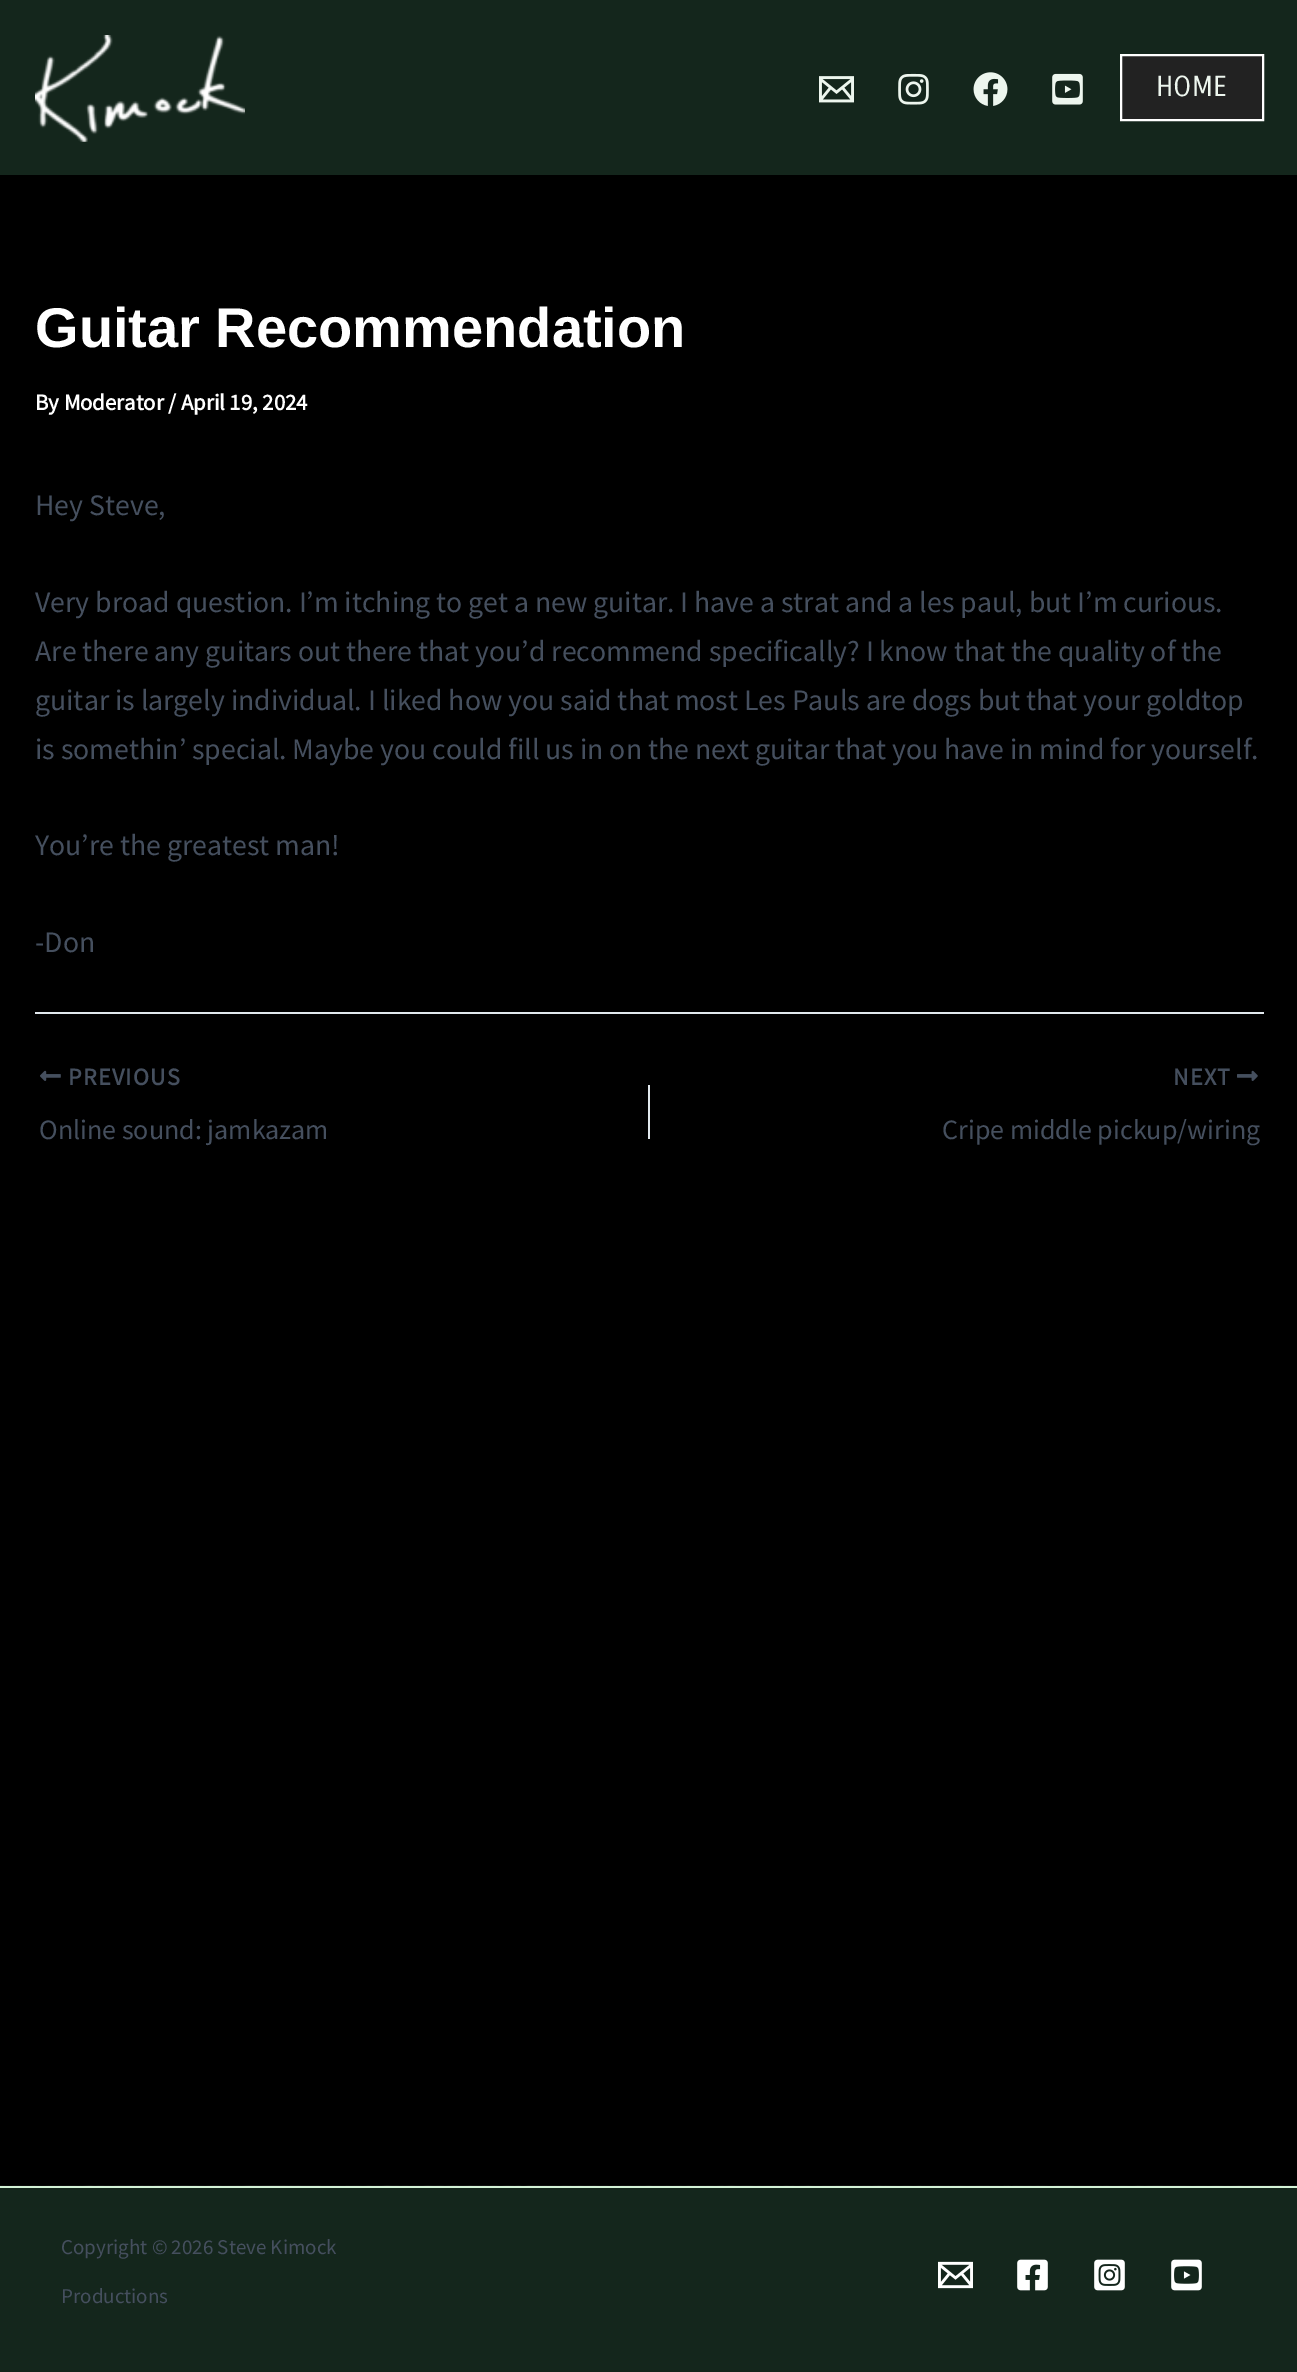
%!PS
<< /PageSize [1297 2372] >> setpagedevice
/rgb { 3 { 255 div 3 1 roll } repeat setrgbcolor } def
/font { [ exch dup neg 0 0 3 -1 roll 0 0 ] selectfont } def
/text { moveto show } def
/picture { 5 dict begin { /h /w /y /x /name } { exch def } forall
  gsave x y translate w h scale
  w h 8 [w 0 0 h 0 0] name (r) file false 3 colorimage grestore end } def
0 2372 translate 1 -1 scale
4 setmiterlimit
0 0 0 rgb
0 0 1297 2372 rectfill
20 38 28 rgb
0 0 1297 175 rectfill
(img_01.rgb) 35 35 210 107 picture
(img_02.rgb) 819 76 35 27 picture
(img_03.rgb) 898 73 31 32 picture
(img_04.rgb) 973 72 35 34 picture
(img_05.rgb) 1052 73 31 32 picture
34 34 34 rgb
1121 55 moveto 142 0 rlineto 0 65 rlineto -142 0 rlineto closepath gsave fill grestore
255 255 255 rgb
2 setlinewidth
stroke
(img_06.rgb) 0 2185 1297 1 picture
225 232 237 rgb
35 1012 1229 2 rectfill
(img_07.rgb) 40 1070 21 11 picture
648 1085 2 54 rectfill
(img_08.rgb) 1237 1070 21 11 picture
20 38 28 rgb
0 2188 1297 184 rectfill
212 243 215 rgb
0 2186 1297 2 rectfill
(img_09.rgb) 938 2261 35 28 picture
(img_10.rgb) 1017 2259 31 32 picture
(img_11.rgb) 1094 2259 31 32 picture
(img_12.rgb) 1171 2259 31 32 picture
/CarroisGothic-Regular 28 font
237 246 238 rgb
(HOME) 1156 96 text
/LiberationSans-Bold 56 font
255 255 255 rgb
(Guitar Recommendation) 35 347 text
/SourceSansPro-Bold 22.75 font
(By Moderator / April 19, 2024) 35 410 text
/SourceSansPro-Regular 29.75 font
69 79 94 rgb
(Hey Steve,) 35 515 text
(Very broad question. I’m itching to get a new guitar. I have a strat and a les paul, but I’m curious.) 35 612 text
(Are there any guitars out there that you’d recommend specifically? I know that the quality of the) 35 661 text
(guitar is largely individual. I liked how you said that most Les Pauls are dogs but that your goldtop) 35 710 text
(is somethin’ special. Maybe you could fill us in on the next guitar that you have in mind for yourself.) 35 759 text
(You’re the greatest man!) 35 855 text
(-Don) 35 952 text
/SourceSansPro-Bold 24 font
68 1085 moveto 1.25 0 (PREVIOUS) ashow
/SourceSansPro-Regular 28 font
(Online sound: jamkazam) 39 1139 text
/SourceSansPro-Bold 24 font
1173 1085 moveto 1.25 0 (NEXT) ashow
/SourceSansPro-Regular 28 font
(Cripe middle pickup/wiring) 942 1139 text
/SourceSansPro-Regular 21 font
(Copyright © 2026 Steve Kimock) 61 2254 text
(Productions) 61 2303 text
showpage
